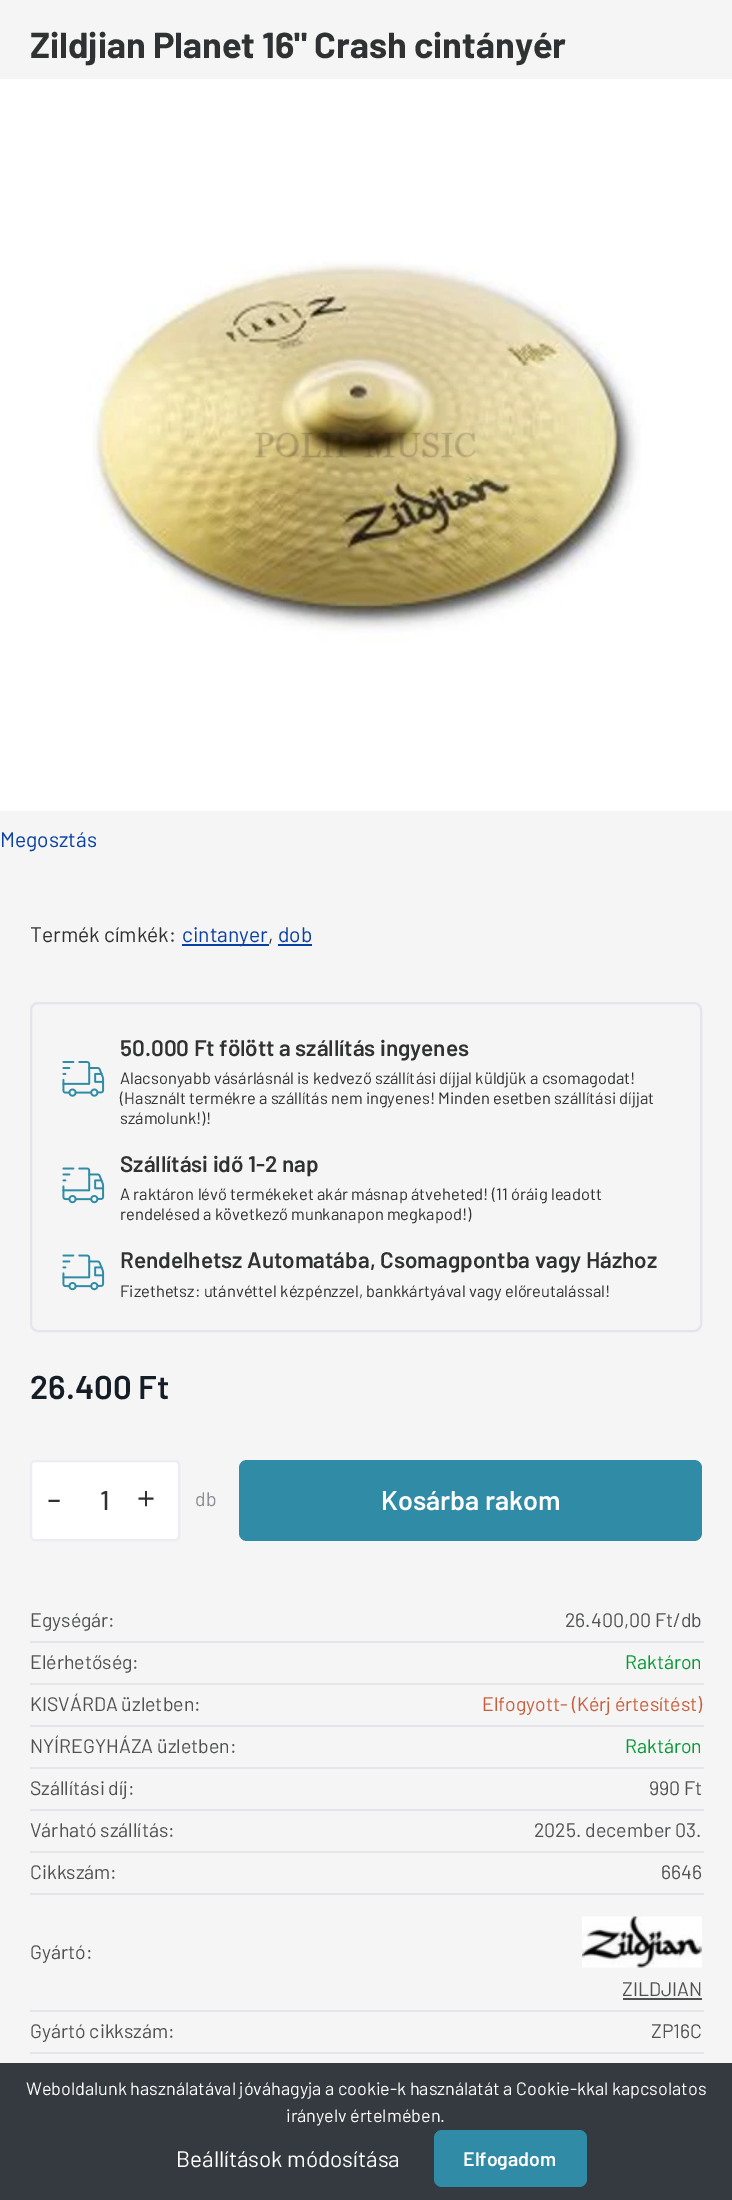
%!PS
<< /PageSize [732 2200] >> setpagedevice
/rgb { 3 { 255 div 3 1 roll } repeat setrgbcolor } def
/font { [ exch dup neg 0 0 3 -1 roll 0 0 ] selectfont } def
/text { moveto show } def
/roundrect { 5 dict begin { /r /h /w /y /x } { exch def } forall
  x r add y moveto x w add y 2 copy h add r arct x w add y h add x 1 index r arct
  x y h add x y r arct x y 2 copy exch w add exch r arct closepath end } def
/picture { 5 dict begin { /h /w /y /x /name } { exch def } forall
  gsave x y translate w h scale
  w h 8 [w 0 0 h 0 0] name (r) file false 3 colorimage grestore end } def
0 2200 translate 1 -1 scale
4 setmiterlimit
245 245 245 rgb
0 0 732 2200 rectfill
(img_01.rgb) 0 79 732 732 picture
10 63 163 rgb
182 944 87 2 rectfill
278 944 34 2 rectfill
228 228 234 rgb
2 setlinewidth
31 1003 670 328 7 roundrect stroke
(img_02.rgb) 62 1061 43 36 picture
(img_03.rgb) 62 1167 43 37 picture
(img_03.rgb) 62 1254 43 37 picture
255 255 255 rgb
31 1461 148 79 4 roundrect gsave fill grestore
236 236 244 rgb
stroke
48 140 166 rgb
239 1460 463 81 8 roundrect fill
228 228 234 rgb
30 1641 674 2 rectfill
30 1683 674 2 rectfill
30 1725 674 2 rectfill
30 1767 674 2 rectfill
30 1809 674 2 rectfill
30 1851 674 2 rectfill
30 1893 674 2 rectfill
(img_04.rgb) 582 1916 120 52 picture
79 81 83 rgb
623 1998 79 2 rectfill
228 228 234 rgb
30 2010 674 2 rectfill
30 2052 674 2 rectfill
52 58 64 rgb
0 2063 732 137 rectfill
48 140 166 rgb
434 2130 153 57 8 roundrect fill
/Barlow-Bold 36 font
47 49 50 rgb
(Zildjian Planet 16" Crash cintányér) 30 58 text
/Barlow-Regular 21 font
10 63 163 rgb
(Megosztás) 0 847 text
47 49 50 rgb
(Termék címkék:) 30 942 text
10 63 163 rgb
(cintanyer) 182 942 text
47 49 50 rgb
(,) 268 942 text
10 63 163 rgb
(dob) 278 942 text
/Barlow-SemiBold 22.5 font
47 49 50 rgb
(50.000 Ft fölött a szállítás ingyenes) 120 1056 text
/Barlow-Regular 16.5 font
(Alacsonyabb vásárlásnál is kedvező szállítási díjjal küldjük a csomagodat!) 120 1084 text
(\(Használt termékre a szállítás nem ingyenes! Minden esetben szállítási díjjat) 120 1104 text
(számolunk!\)!) 120 1124 text
/Barlow-SemiBold 22.5 font
(Szállítási idő 1-2 nap) 120 1172 text
/Barlow-Regular 16.5 font
(A raktáron lévő termékeket akár másnap átveheted! \(11 óráig leadott) 120 1200 text
(rendelésed a következő munkanapon megkapod!\)) 120 1220 text
/Barlow-SemiBold 22.5 font
(Rendelhetsz Automatába, Csomagpontba vagy Házhoz) 120 1268 text
/Barlow-Regular 16.5 font
(Fizethetsz: utánvéttel kézpénzzel, bankkártyával vagy előreutalással!) 120 1297 text
/Barlow-SemiBold 33 font
21 30 38 rgb
(26.400 Ft) 30 1399 text
/Barlow-Regular 36 font
47 49 50 rgb
(-) 47 1512 text
/Barlow-Medium 27 font
(1) 100 1510 text
/Barlow-Regular 36 font
(+) 137 1510 text
/Barlow-Regular 19.5 font
141 141 147 rgb
(db) 195 1506 text
/Barlow-SemiBold 27 font
255 255 255 rgb
(Kosárba rakom) 381 1510 text
/Barlow-Regular 19.5 font
79 81 83 rgb
(Egységár:) 30 1627 text
(26.400,00 Ft/db) 565 1627 text
(Elérhetőség:) 30 1669 text
5 153 52 rgb
(Raktáron) 625 1669 text
79 81 83 rgb
(KISVÁRDA üzletben:) 30 1711 text
199 94 59 rgb
(Elfogyott- \(Kérj értesítést\)) 482 1711 text
79 81 83 rgb
(NYÍREGYHÁZA üzletben:) 30 1753 text
5 153 52 rgb
(Raktáron) 625 1753 text
79 81 83 rgb
(Szállítási díj:) 30 1795 text
(990 Ft) 649 1795 text
(Várható szállítás:) 30 1837 text
(2025. december 03.) 534 1837 text
(Cikkszám:) 30 1879 text
(6646) 661 1879 text
(Gyártó:) 30 1959 text
(ZILDJIAN) 622 1996 text
(Gyártó cikkszám:) 30 2038 text
(ZP16C) 651 2038 text
/Barlow-Regular 18 font
255 255 255 rgb
(Weboldalunk használatával jóváhagyja a cookie-k használatát a Cookie-kkal kapcsolatos) 26 2095 text
(irányelv értelmében.) 286 2122 text
/Barlow-Regular 22.5 font
(Beállítások módosítása) 176 2167 text
/Barlow-SemiBold 19.5 font
(Elfogadom) 463 2166 text
showpage
